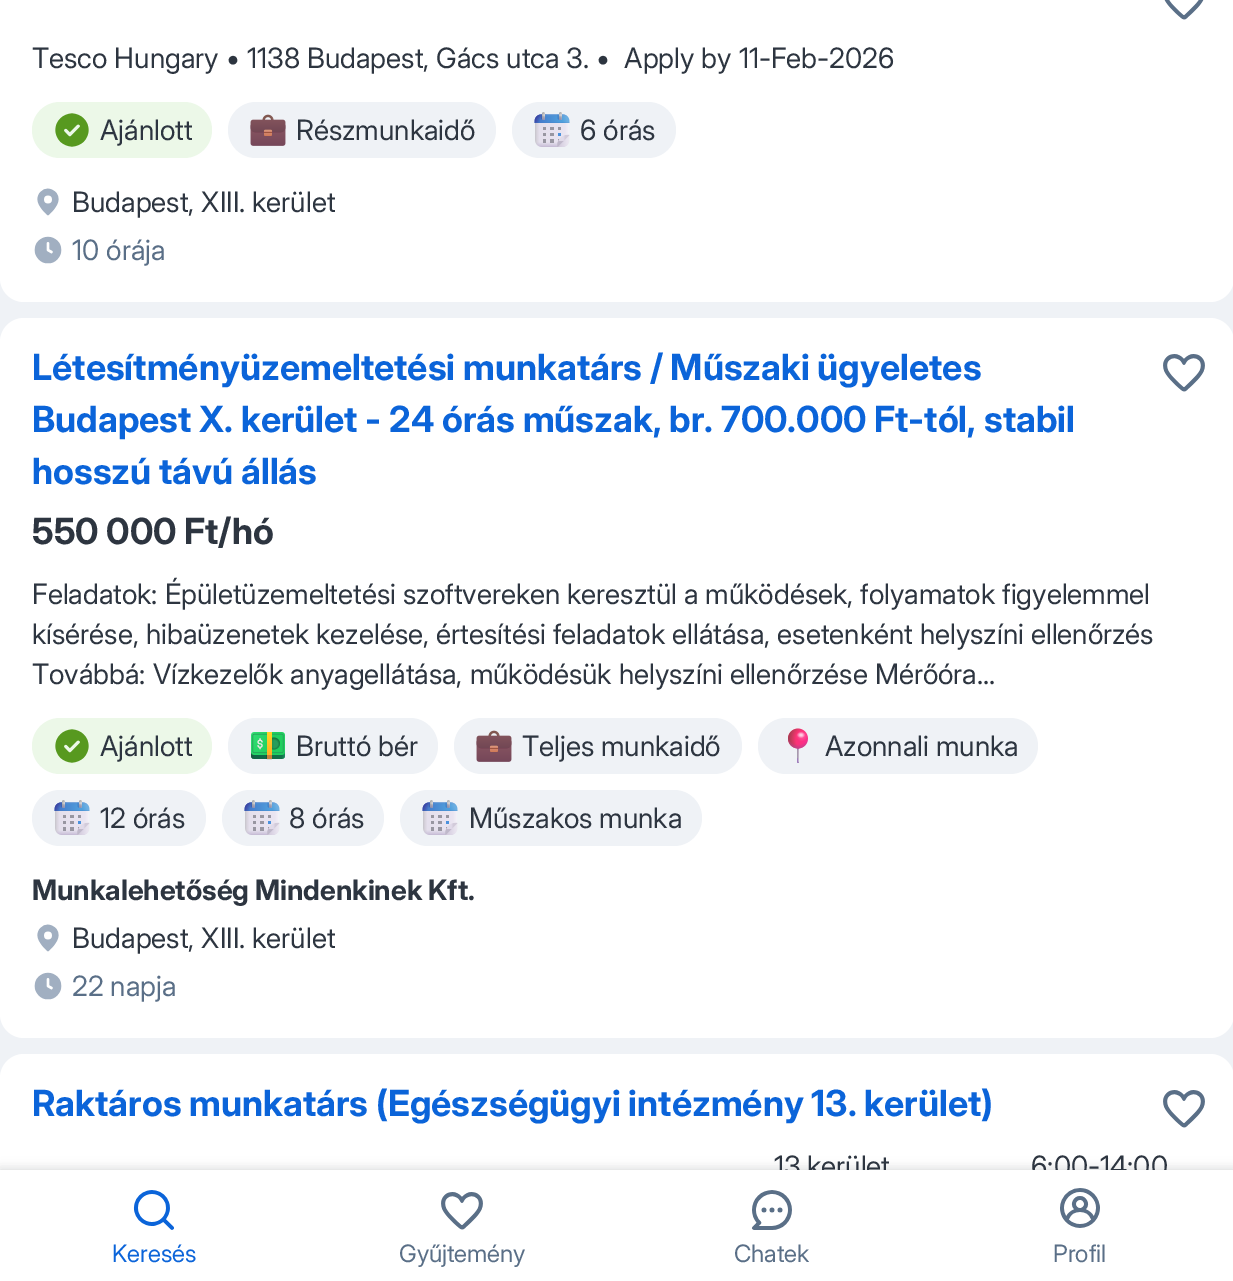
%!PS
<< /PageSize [1233 1281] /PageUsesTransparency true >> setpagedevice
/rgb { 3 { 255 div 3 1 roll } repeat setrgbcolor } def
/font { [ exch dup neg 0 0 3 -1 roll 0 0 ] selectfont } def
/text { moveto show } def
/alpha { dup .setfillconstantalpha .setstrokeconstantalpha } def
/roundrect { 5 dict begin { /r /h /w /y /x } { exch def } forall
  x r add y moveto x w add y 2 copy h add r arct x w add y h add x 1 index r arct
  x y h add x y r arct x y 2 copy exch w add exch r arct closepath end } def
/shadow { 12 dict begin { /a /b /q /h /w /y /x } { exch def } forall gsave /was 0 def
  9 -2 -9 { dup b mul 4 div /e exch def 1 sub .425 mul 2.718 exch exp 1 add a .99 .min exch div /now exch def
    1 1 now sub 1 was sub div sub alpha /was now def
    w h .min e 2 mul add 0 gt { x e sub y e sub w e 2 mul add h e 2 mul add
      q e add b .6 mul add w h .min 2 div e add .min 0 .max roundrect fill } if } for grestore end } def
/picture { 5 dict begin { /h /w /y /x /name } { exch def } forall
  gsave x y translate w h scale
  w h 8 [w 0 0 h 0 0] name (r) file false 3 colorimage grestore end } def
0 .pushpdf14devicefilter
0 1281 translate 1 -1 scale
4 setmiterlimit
239 242 246 rgb
0 0 1233 1281 rectfill
255 255 255 rgb
0 -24 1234 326 24 roundrect fill
(img_01.rgb) 1164 0 40 20 picture
236 248 232 rgb
32 102 180 56 28 roundrect fill
(img_02.rgb) 55 113 34 34 picture
239 242 246 rgb
228 102 268 56 28 roundrect fill
(img_03.rgb) 250 114 36 32 picture
512 102 164 56 28 roundrect fill
(img_04.rgb) 534 112 36 35 picture
(img_05.rgb) 37 188 22 28 picture
(img_06.rgb) 34 236 28 28 picture
255 255 255 rgb
0 318 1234 720 24 roundrect fill
(img_07.rgb) 1163 354 42 38 picture
236 248 232 rgb
32 718 180 56 28 roundrect fill
(img_02.rgb) 55 729 34 34 picture
239 242 246 rgb
228 718 210 56 28 roundrect fill
(img_08.rgb) 251 732 34 28 picture
454 718 288 56 28 roundrect fill
(img_03.rgb) 476 730 36 32 picture
758 718 280 56 28 roundrect fill
(img_09.rgb) 788 728 20 35 picture
32 790 174 56 28 roundrect fill
(img_04.rgb) 54 800 36 35 picture
222 790 162 56 28 roundrect fill
(img_04.rgb) 244 800 36 35 picture
400 790 302 56 28 roundrect fill
(img_04.rgb) 422 800 36 35 picture
(img_05.rgb) 37 924 22 28 picture
(img_06.rgb) 34 972 28 28 picture
255 255 255 rgb
0 1054 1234 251 24 roundrect fill
(img_07.rgb) 1163 1090 42 38 picture
23 30 38 rgb
0 1170 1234 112 0 6 0.12 shadow
0 1170 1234 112 0 4 0.08 shadow
/InterDisplay-Regular 28 font
45 53 64 rgb
(Tesco Hungary • 1138 Budapest, Gács utca 3. •  Apply by 11-Feb-2026) 32 68 text
(Ajánlott) 100 140 text
(Részmunkaidő) 296 140 text
(6 órás) 580 140 text
(Budapest, XIII. kerület) 72 212 text
90 111 135 rgb
(10 órája) 72 260 text
/InterDisplay-Bold 36 font
11 100 217 rgb
(Létesítményüzemeltetési munkatárs / Műszaki ügyeletes) 32 380 text
(Budapest X. kerület - 24 órás műszak, br. 700.000 Ft-tól, stabil) 32 432 text
(hosszú távú állás) 32 484 text
45 53 64 rgb
(550 000 Ft/hó) 32 544 text
/InterDisplay-Regular 28 font
(Feladatok: Épületüzemeltetési szoftvereken keresztül a működések, folyamatok figyelemmel) 32 604 text
(kísérése, hibaüzenetek kezelése, értesítési feladatok ellátása, esetenként helyszíni ellenőrzés) 32 644 text
(Továbbá: Vízkezelők anyagellátása, működésük helyszíni ellenőrzése Mérőóra...) 32 684 text
(Ajánlott) 100 756 text
(Bruttó bér) 296 756 text
(Teljes munkaidő) 522 756 text
(Azonnali munka) 825 756 text
(12 órás) 100 828 text
(8 órás) 289 828 text
(Műszakos munka) 469 828 text
/InterDisplay-Bold 28 font
(Munkalehetőség Mindenkinek Kft.) 32 900 text
/InterDisplay-Regular 28 font
(Budapest, XIII. kerület) 72 948 text
90 111 135 rgb
(22 napja) 72 996 text
/InterDisplay-Bold 36 font
11 100 217 rgb
(Raktáros munkatárs \(Egészségügyi intézmény 13. kerület\)) 32 1116 text
/InterDisplay-Regular 28 font
45 53 64 rgb
(13.kerület) 774 1176 text
(6:00-14:00) 1031 1176 text
255 255 255 rgb
0 1170 1233 111 rectfill
(img_10.rgb) 133 1190 41 40 picture
/InterDisplay-Regular 24 font
11 100 217 rgb
(Keresés) 112 1262 text
(img_07.rgb) 441 1192 42 38 picture
90 111 135 rgb
(Gyűjtemény) 399 1262 text
(img_11.rgb) 751 1190 41 40 picture
(Chatek) 734 1262 text
(img_12.rgb) 1060 1188 40 40 picture
(Profil) 1053 1262 text
.poppdf14devicefilter showpage
